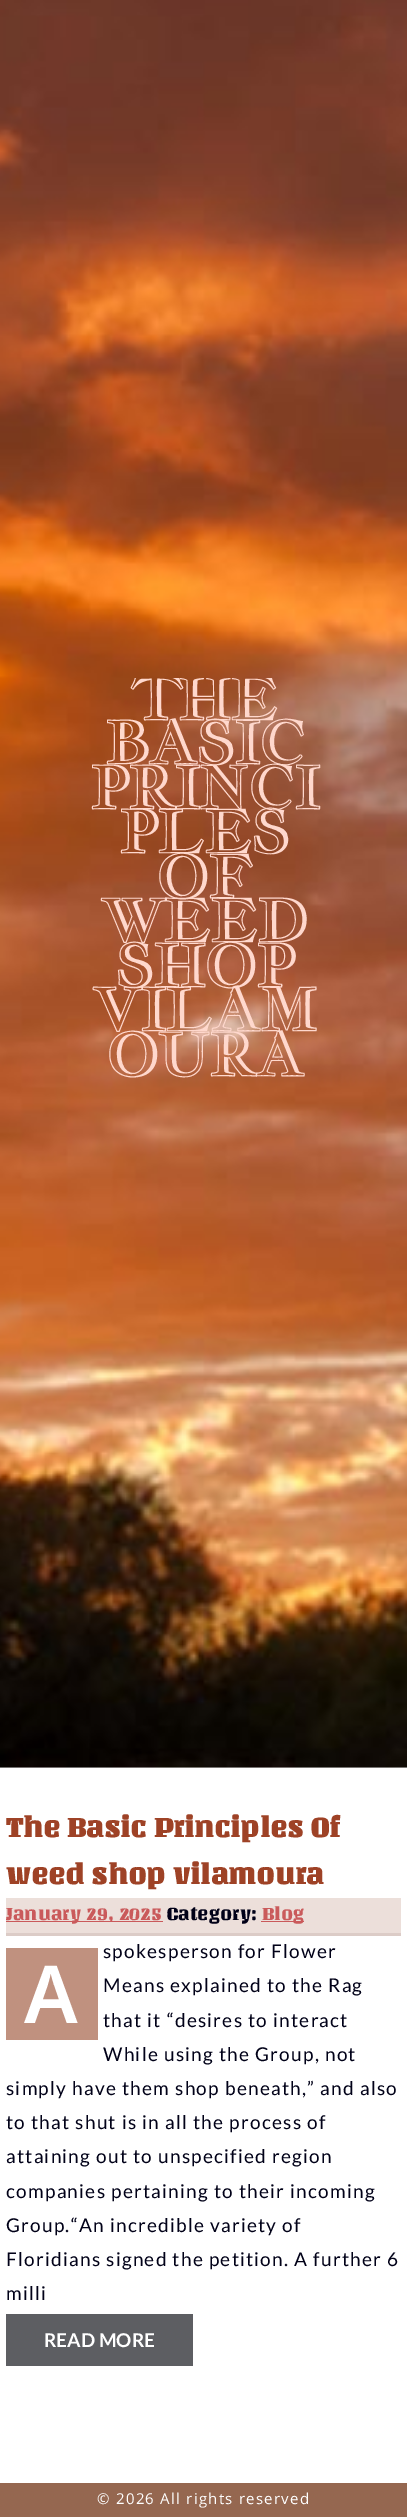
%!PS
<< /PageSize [407 2517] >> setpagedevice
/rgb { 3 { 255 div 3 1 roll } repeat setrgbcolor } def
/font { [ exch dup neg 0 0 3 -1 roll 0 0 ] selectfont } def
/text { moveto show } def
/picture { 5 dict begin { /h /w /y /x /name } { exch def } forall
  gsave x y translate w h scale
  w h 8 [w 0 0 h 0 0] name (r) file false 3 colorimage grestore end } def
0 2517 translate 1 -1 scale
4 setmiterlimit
255 255 255 rgb
0 0 407 2517 rectfill
(img_01.rgb) 0 0 407 1768 picture
236 223 218 rgb
6 1898 395 35 rectfill
220 204 199 rgb
6 1933 395 3 rectfill
202 90 91 rgb
6 1921 157 1 rectfill
261 1921 43 1 rectfill
192 145 127 rgb
6 1948 92 92 rectfill
93 94 98 rgb
6 2314 187 52 rectfill
149 103 80 rgb
0 2483 407 34 rectfill
gsave
44 678 320 403 rectclip
/JacquesFrancoisShadow-Regular 59 font
255 216 205 rgb
131 719 moveto -2.5 0 (THE) ashow
grestore
/JacquesFrancoisShadow-Regular 59 font
255 216 205 rgb
105 763 moveto -2.5 0 (BASIC) ashow
90 808 moveto -2.5 0 (PRINCI) ashow
119 852 moveto -2.5 0 (PLES) ashow
156 897 moveto -2.5 0 (OF) ashow
101 941 moveto -2.5 0 (WEED) ashow
115 986 moveto -2.5 0 (SHOP) ashow
93 1030 moveto -2.5 0 (VILAM) ashow
106 1075 moveto -2.5 0 (OURA) ashow
/Unlock-Bold 28.75 font
158 66 38 rgb
(The Basic Principles Of) 6 1837 text
(weed shop vilamoura) 6 1884 text
/Unlock-Regular 19 font
202 90 91 rgb
(January 29, 2025) 6 1920 text
1 1 24 rgb
(Category:) 167 1920 text
202 90 91 rgb
(Blog) 262 1920 text
/Lato-Regular 19 font
1 1 24 rgb
103 1958 moveto 1.25 0 (spokesperson for Flower) ashow
/NotoSans-SemiBold 80 font
255 255 255 rgb
24 2023 moveto 1.25 0 (A) ashow
/Lato-Regular 19 font
1 1 24 rgb
103 1992 moveto 1.25 0 (Means explained to the Rag) ashow
103 2027 moveto 1.25 0 (that it “desires to interact) ashow
103 2061 moveto 1.25 0 (While using the Group, not) ashow
6 2095 moveto 1.25 0 (simply have them shop beneath,” and also) ashow
6 2129 moveto 1.25 0 (to that shut is in all the process of) ashow
6 2163 moveto 1.25 0 (attaining out to unspecified region) ashow
6 2198 moveto 1.25 0 (companies pertaining to their incoming) ashow
6 2232 moveto 1.25 0 (Group.“An incredible variety of) ashow
6 2266 moveto 1.25 0 (Floridians signed the petition. A further 6) ashow
6 2300 moveto 1.25 0 (milli) ashow
/Lato-Bold 19 font
255 255 255 rgb
(READ MORE) 44 2347 text
/OpenSans-Regular 15 font
97 2504 moveto 1.25 0 (© 2026 All rights reserved) ashow
showpage
